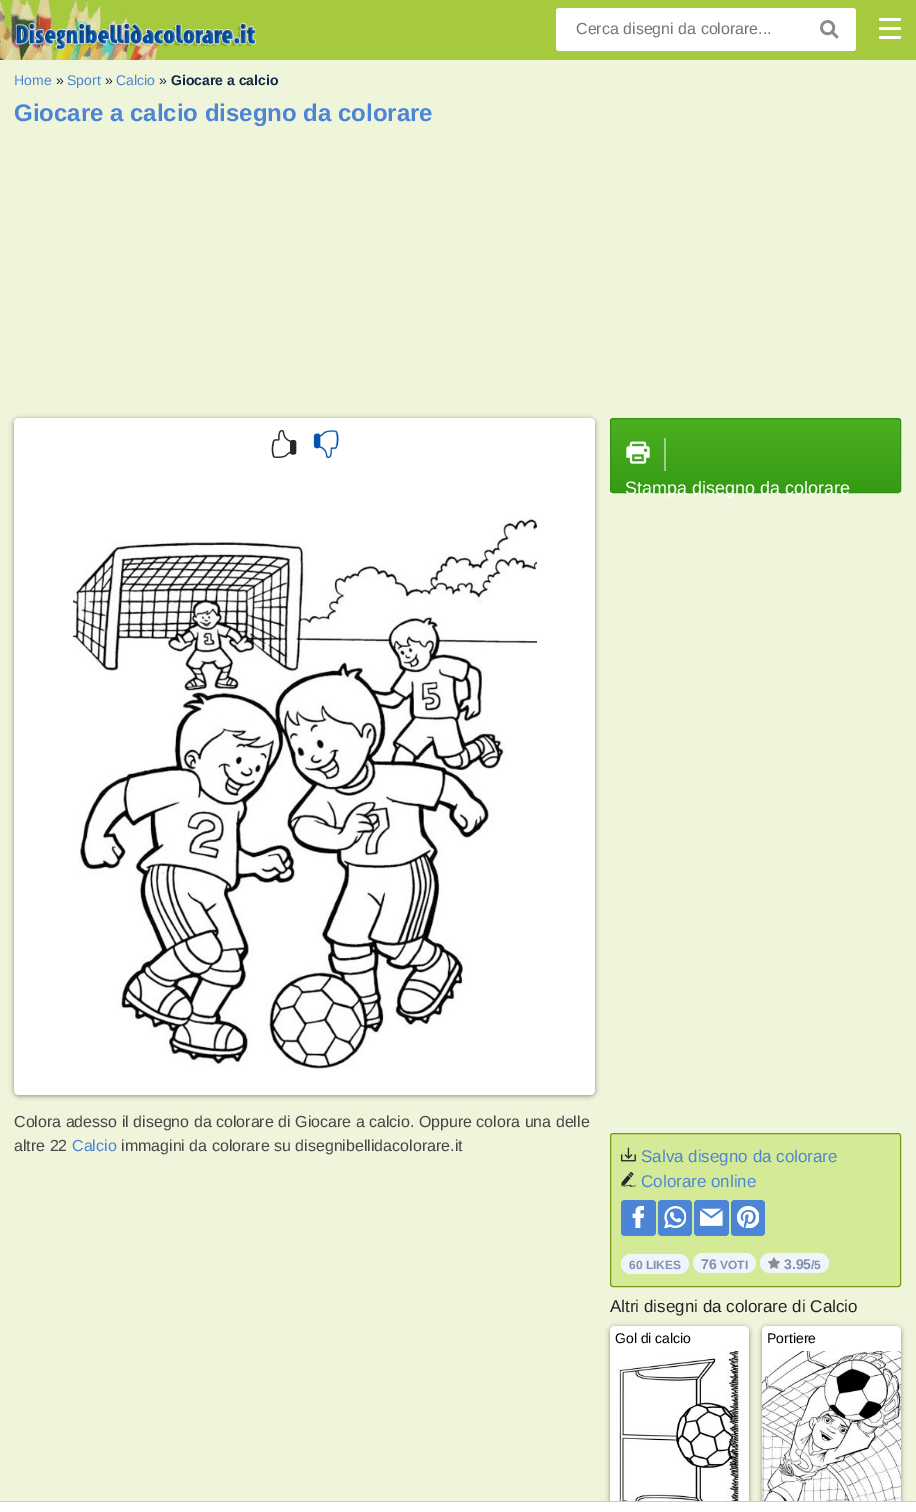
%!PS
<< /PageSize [916 1512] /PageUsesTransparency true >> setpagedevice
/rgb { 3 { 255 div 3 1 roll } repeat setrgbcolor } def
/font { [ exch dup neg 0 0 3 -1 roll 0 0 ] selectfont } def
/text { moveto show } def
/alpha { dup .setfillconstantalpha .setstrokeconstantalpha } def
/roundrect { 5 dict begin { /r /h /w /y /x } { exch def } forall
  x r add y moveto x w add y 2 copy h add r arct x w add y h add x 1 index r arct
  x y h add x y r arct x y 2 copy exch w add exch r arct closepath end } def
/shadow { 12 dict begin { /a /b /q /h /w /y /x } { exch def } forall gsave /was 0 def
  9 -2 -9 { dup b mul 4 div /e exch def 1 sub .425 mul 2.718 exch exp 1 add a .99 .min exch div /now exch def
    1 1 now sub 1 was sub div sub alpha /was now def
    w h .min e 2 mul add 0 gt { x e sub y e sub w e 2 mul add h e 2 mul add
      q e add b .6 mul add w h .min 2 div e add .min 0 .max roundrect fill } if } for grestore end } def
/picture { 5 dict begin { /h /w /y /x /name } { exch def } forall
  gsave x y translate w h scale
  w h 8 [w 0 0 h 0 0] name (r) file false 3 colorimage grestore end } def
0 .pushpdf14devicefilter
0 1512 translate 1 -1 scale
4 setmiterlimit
238 245 219 rgb
0 0 916 1512 rectfill
165 202 62 rgb
0 0 916 60 rectfill
(img_01.rgb) 0 0 159 60 picture
(img_02.rgb) 15 22 242 28 picture
255 255 255 rgb
556 8 300 43 3 roundrect fill
(img_03.rgb) 820 20 19 19 picture
879 18 22 3 1.5 roundrect fill
879 27 22 3 1.5 roundrect fill
879 36 22 3 1.5 roundrect fill
0 0 0 rgb
14 419 581 677 5 2.5 0.4 shadow
255 255 255 rgb
14 418 581 677 5 roundrect fill
(img_04.rgb) 271 430 26 28 picture
(img_05.rgb) 313 430 26 28 picture
(img_06.rgb) 73 516 464 555 picture
gsave
610 418 291 75 3 roundrect clip newpath
gsave 610 419 moveto 291 0 rlineto 0 73 rlineto -291 0 rlineto closepath clip newpath
<< /ShadingType 2 /ColorSpace /DeviceRGB /Coords [756 419 756 492] /Extend [true true] /Function << /FunctionType 2 /Domain [0 1] /C0 [0.298 0.69 0.129] /C1 [0.208 0.608 0.078] /N 1 >> >> shfill grestore
grestore
gsave 664 438 moveto 2 0 rlineto 0 33 rlineto -2 0 rlineto closepath clip newpath
<< /ShadingType 2 /ColorSpace /DeviceRGB /Coords [756 419 756 492] /Extend [true true] /Function << /FunctionType 2 /Domain [0 1] /C0 [0.651 0.847 0.565] /C1 [0.604 0.804 0.541] /N 1 >> >> shfill grestore
52 144 20 rgb
610.5 418.5 290 74 2.5 roundrect stroke
(img_07.rgb) 626 441 24 23 picture
212 234 151 rgb
610.5 1133.5 290 153 2.5 roundrect gsave fill grestore
117 151 20 rgb
stroke
(img_08.rgb) 621 1147 15 15 picture
(img_09.rgb) 621 1172 15 15 picture
76 133 213 rgb
621 1200 35 36 4 roundrect fill
(img_10.rgb) 632 1206 12 22 picture
658 1200 34 36 4 roundrect fill
(img_11.rgb) 664 1206 22 22 picture
694 1200 35 36 4 roundrect fill
(img_12.rgb) 700 1208 23 18 picture
731 1200 34 36 4 roundrect fill
(img_13.rgb) 737 1206 22 22 picture
240 245 252 rgb
621 1254 68 20 10 roundrect fill
693 1253 63 20 10 roundrect fill
760 1253 69 20 10 roundrect fill
(img_14.rgb) 768 1257 12 12 picture
0 0 0 rgb
610 1327 139 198 5 2.5 0.4 shadow
255 255 255 rgb
610 1326 139 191 5 roundrect fill
(img_15.rgb) 616 1351 128 150 picture
0 0 0 rgb
762 1327 139 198 5 2.5 0.4 shadow
255 255 255 rgb
762 1326 139 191 5 roundrect fill
(img_16.rgb) 762 1351 139 150 picture
0 1502 916 10 rectfill
204 204 204 rgb
0 1501 916 1 rectfill
/LiberationSans-Regular 16 font
117 117 117 rgb
(Cerca disegni da colorare...) 576 34 text
/LiberationSans-Regular 14 font
76 133 213 rgb
(Home) 14 85 text
16 38 69 rgb
(») 56 85 text
76 133 213 rgb
(Sport) 67 85 text
16 38 69 rgb
(») 105 85 text
76 133 213 rgb
(Calcio) 116 85 text
16 38 69 rgb
(») 159 85 text
/LiberationSans-Bold 14 font
(Giocare a calcio) 171 85 text
/LiberationSans-Bold 24 font
76 133 213 rgb
(Giocare a calcio disegno da colorare) 14 121 text
/LiberationSans-Regular 16 font
70 70 70 rgb
(Colora adesso il disegno da colorare di Giocare a calcio. Oppure colora una delle) 14 1127 text
(altre 22) 14 1151 text
76 133 213 rgb
(Calcio) 72 1151 text
70 70 70 rgb
(immagini da colorare su disegnibellidacolorare.it) 121 1151 text
/LiberationSans-Regular 18 font
255 255 255 rgb
(Stampa disegno da colorare) 625 494 text
/LiberationSans-Regular 17 font
76 133 213 rgb
(Salva disegno da colorare) 641 1162 text
(Colorare online) 641 1187 text
/LiberationSans-Bold 12 font
126 145 171 rgb
(60 LIKES) 629 1269 text
/LiberationSans-Bold 14 font
(76) 701 1269 text
/LiberationSans-Bold 12 font
(VOTI) 720 1269 text
/LiberationSans-Bold 14 font
(3.95) 784 1269 text
/LiberationSans-Bold 12 font
(/5) 811 1269 text
/LiberationSans-Regular 17 font
34 34 34 rgb
(Altri disegni da colorare di Calcio) 610 1312 text
/LiberationSans-Regular 14 font
0 0 0 rgb
(Gol di calcio) 615 1343 text
(Portiere) 767 1343 text
.poppdf14devicefilter showpage
